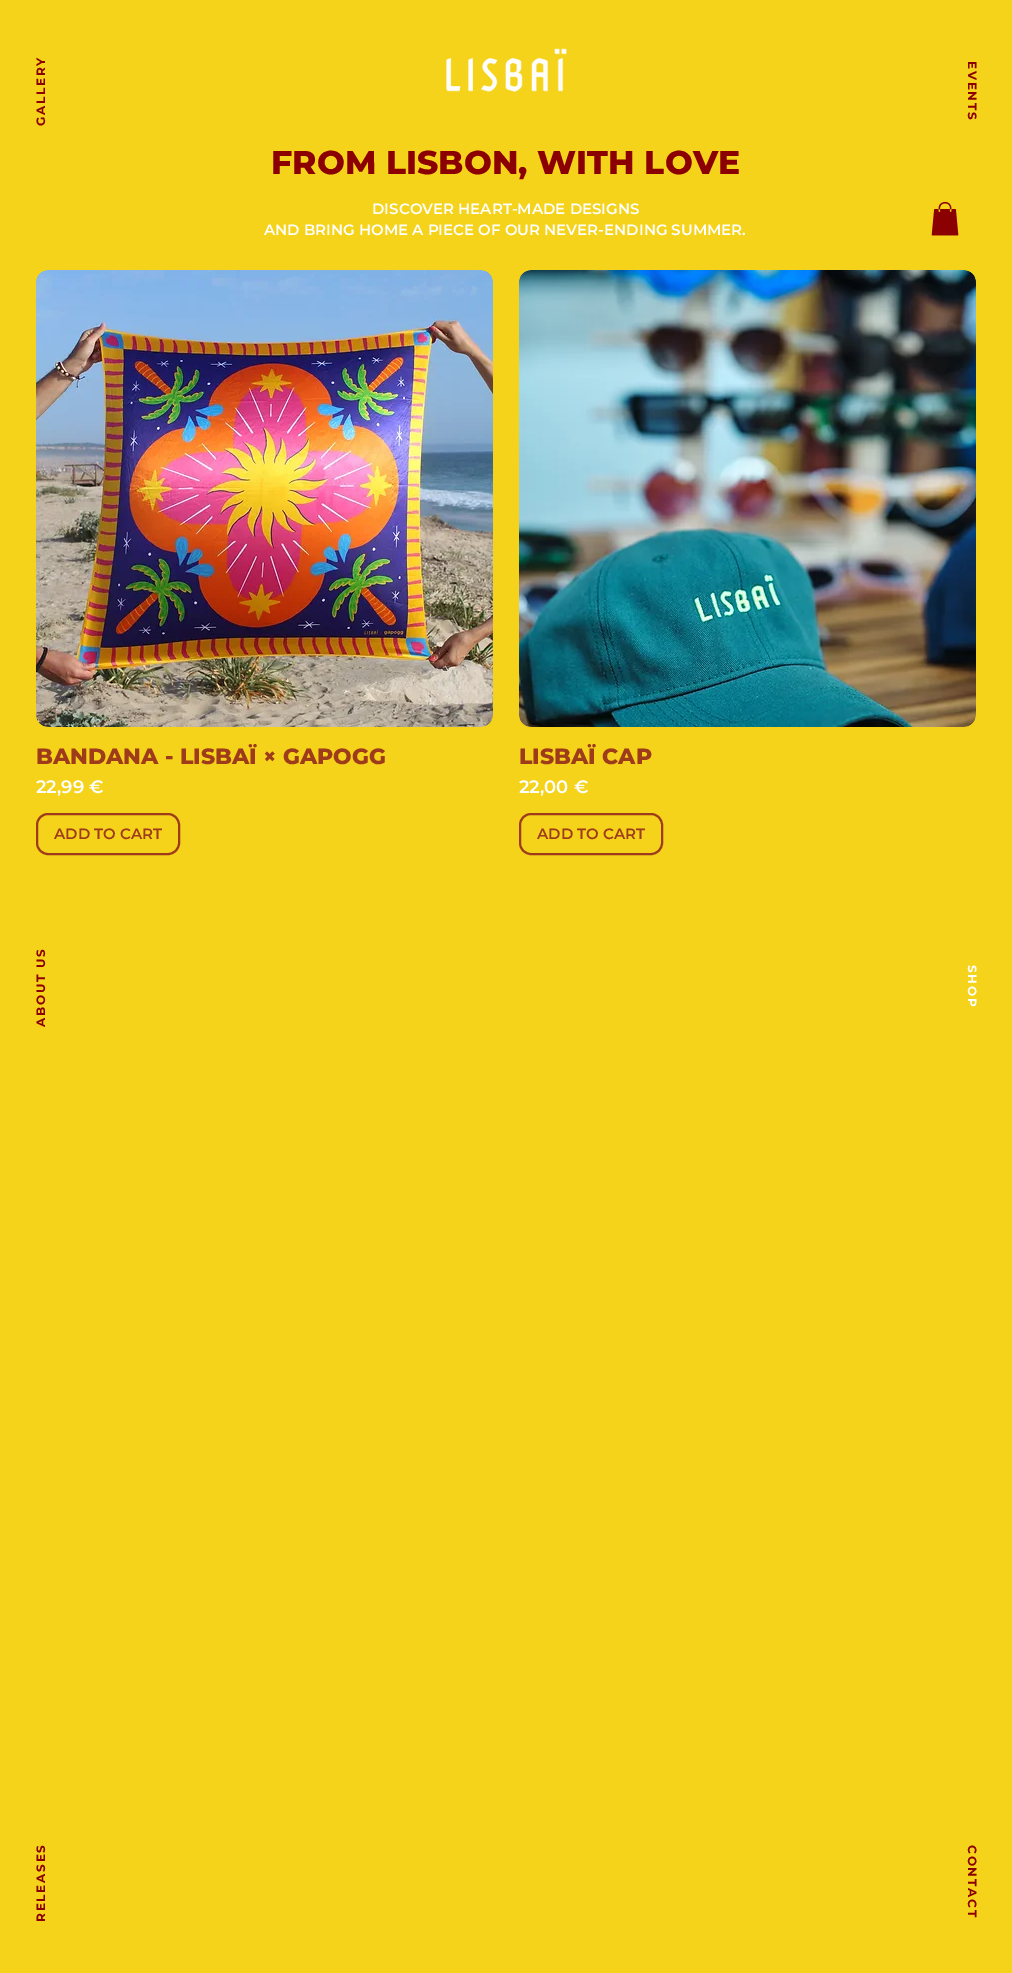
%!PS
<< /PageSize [1012 1973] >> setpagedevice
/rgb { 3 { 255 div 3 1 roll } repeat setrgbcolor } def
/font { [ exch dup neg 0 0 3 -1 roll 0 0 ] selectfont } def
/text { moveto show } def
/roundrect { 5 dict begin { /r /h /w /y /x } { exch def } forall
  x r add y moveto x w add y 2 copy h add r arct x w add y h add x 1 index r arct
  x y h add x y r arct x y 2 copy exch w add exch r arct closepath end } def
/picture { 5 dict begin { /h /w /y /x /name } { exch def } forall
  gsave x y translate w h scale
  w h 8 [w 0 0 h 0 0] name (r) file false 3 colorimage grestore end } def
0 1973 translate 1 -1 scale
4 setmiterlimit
245 211 27 rgb
0 0 1012 1973 rectfill
(img_01.rgb) 446 48 121 45 picture
(img_02.rgb) 931 202 28 34 picture
(img_03.rgb) 36 270 457 457 picture
158 59 27 rgb
2 setlinewidth
37 814 142 40 11 roundrect stroke
(img_04.rgb) 519 270 457 457 picture
520 814 142 40 11 roundrect stroke
/Montserrat-Bold 12 font
139 0 0 rgb
gsave 45 126 translate -90 rotate 0 0 moveto 1.75 0 (GALLERY) ashow grestore
gsave 968 61 translate 90 rotate 0 0 moveto 1.75 0 (EVENTS) ashow grestore
/Montserrat-ExtraBold 33 font
(FROM LISBON, WITH LOVE) 271 174 text
/Montserrat-SemiBold 15 font
255 255 255 rgb
(DISCOVER HEART-MADE DESIGNS) 372 214 text
(AND BRING HOME A PIECE OF OUR NEVER-ENDING SUMMER.) 264 235 text
/Montserrat-ExtraBold 22 font
158 59 27 rgb
(BANDANA - LISBAÏ × GAPOGG) 36 764 text
/Montserrat-SemiBold 18 font
255 255 255 rgb
(22,99 €) 36 793 text
/Montserrat-SemiBold 15 font
158 59 27 rgb
(ADD TO CART) 54 839 text
/Montserrat-ExtraBold 22 font
(LISBAÏ CAP) 519 764 text
/Montserrat-SemiBold 18 font
255 255 255 rgb
(22,00 €) 519 793 text
/Montserrat-SemiBold 15 font
158 59 27 rgb
(ADD TO CART) 537 839 text
gsave
32.5 1026.5 moveto 0 -80 rlineto 15 0 rlineto 0 80 rlineto closepath clip newpath
/Montserrat-Bold 12 font
139 0 0 rgb
gsave 45 1027 translate -90 rotate 0 0 moveto 1.75 0 (ABOUT US) ashow grestore
grestore
/Montserrat-Bold 12 font
255 255 255 rgb
gsave 968 965 translate 90 rotate 0 0 moveto 1.75 0 (SHOP) ashow grestore
139 0 0 rgb
gsave 45 1922 translate -90 rotate 0 0 moveto 1.75 0 (RELEASES) ashow grestore
gsave 968 1845 translate 90 rotate 0 0 moveto 1.75 0 (CONTACT) ashow grestore
showpage
